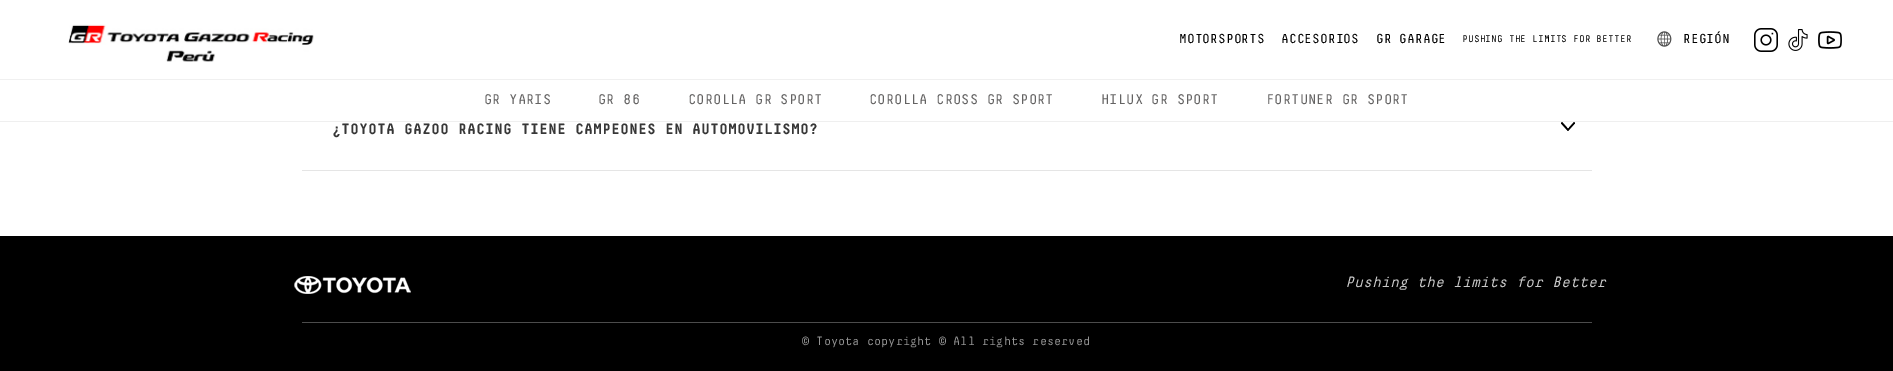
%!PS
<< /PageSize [1893 371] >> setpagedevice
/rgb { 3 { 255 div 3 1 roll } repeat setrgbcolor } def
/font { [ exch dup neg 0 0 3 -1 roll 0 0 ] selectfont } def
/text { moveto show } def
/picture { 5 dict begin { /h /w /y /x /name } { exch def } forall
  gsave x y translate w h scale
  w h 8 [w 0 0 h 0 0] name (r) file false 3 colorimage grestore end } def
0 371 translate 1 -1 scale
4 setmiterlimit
255 255 255 rgb
0 0 1893 371 rectfill
240 240 240 rgb
0 79 1893 1 rectfill
(img_01.rgb) 68 24 246 38 picture
(img_02.rgb) 1657 31 15 16 picture
(img_03.rgb) 1754 28 24 24 picture
(img_04.rgb) 1788 29 20 22 picture
(img_05.rgb) 1818 31 24 18 picture
239 239 239 rgb
0 121 1893 1 rectfill
229 229 229 rgb
302 170 1290 1 rectfill
(img_06.rgb) 1561 122 14 9 picture
0 0 0 rgb
0 236 1893 135 rectfill
(img_07.rgb) 294 276 117 18 picture
76 76 76 rgb
302 322 1290 1 rectfill
/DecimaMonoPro-Regular 13 font
0 0 0 rgb
(MOTORSPORTS) 1179 43 text
(ACCESORIOS) 1281 43 text
(GR GARAGE) 1376 43 text
/DecimaMonoPro-Regular 9.75 font
(PUSHING THE LIMITS FOR BETTER) 1462 42 text
/DecimaMonoPro-Regular 13 font
(REGIÓN) 1683 43 text
/DecimaMonoPro-Regular 14 font
100 99 99 rgb
(GR YARIS) 484 104 text
(GR 86) 598 104 text
(COROLLA GR SPORT) 688 104 text
(COROLLA CROSS GR SPORT) 869 104 text
(HILUX GR SPORT) 1101 104 text
(FORTUNER GR SPORT) 1266 104 text
/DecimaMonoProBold-Bold 15 font
55 55 55 rgb
(¿TOYOTA GAZOO RACING TIENE CAMPEONES EN AUTOMOVILISMO?) 332 134 text
/DecimaMonoPro-Italic 15 font
200 200 200 rgb
(Pushing the limits for Better) 1345 287 text
/DecimaMonoPro-Regular 12 font
147 147 147 rgb
(© Toyota copyright © All rights reserved) 802 345 text
showpage
